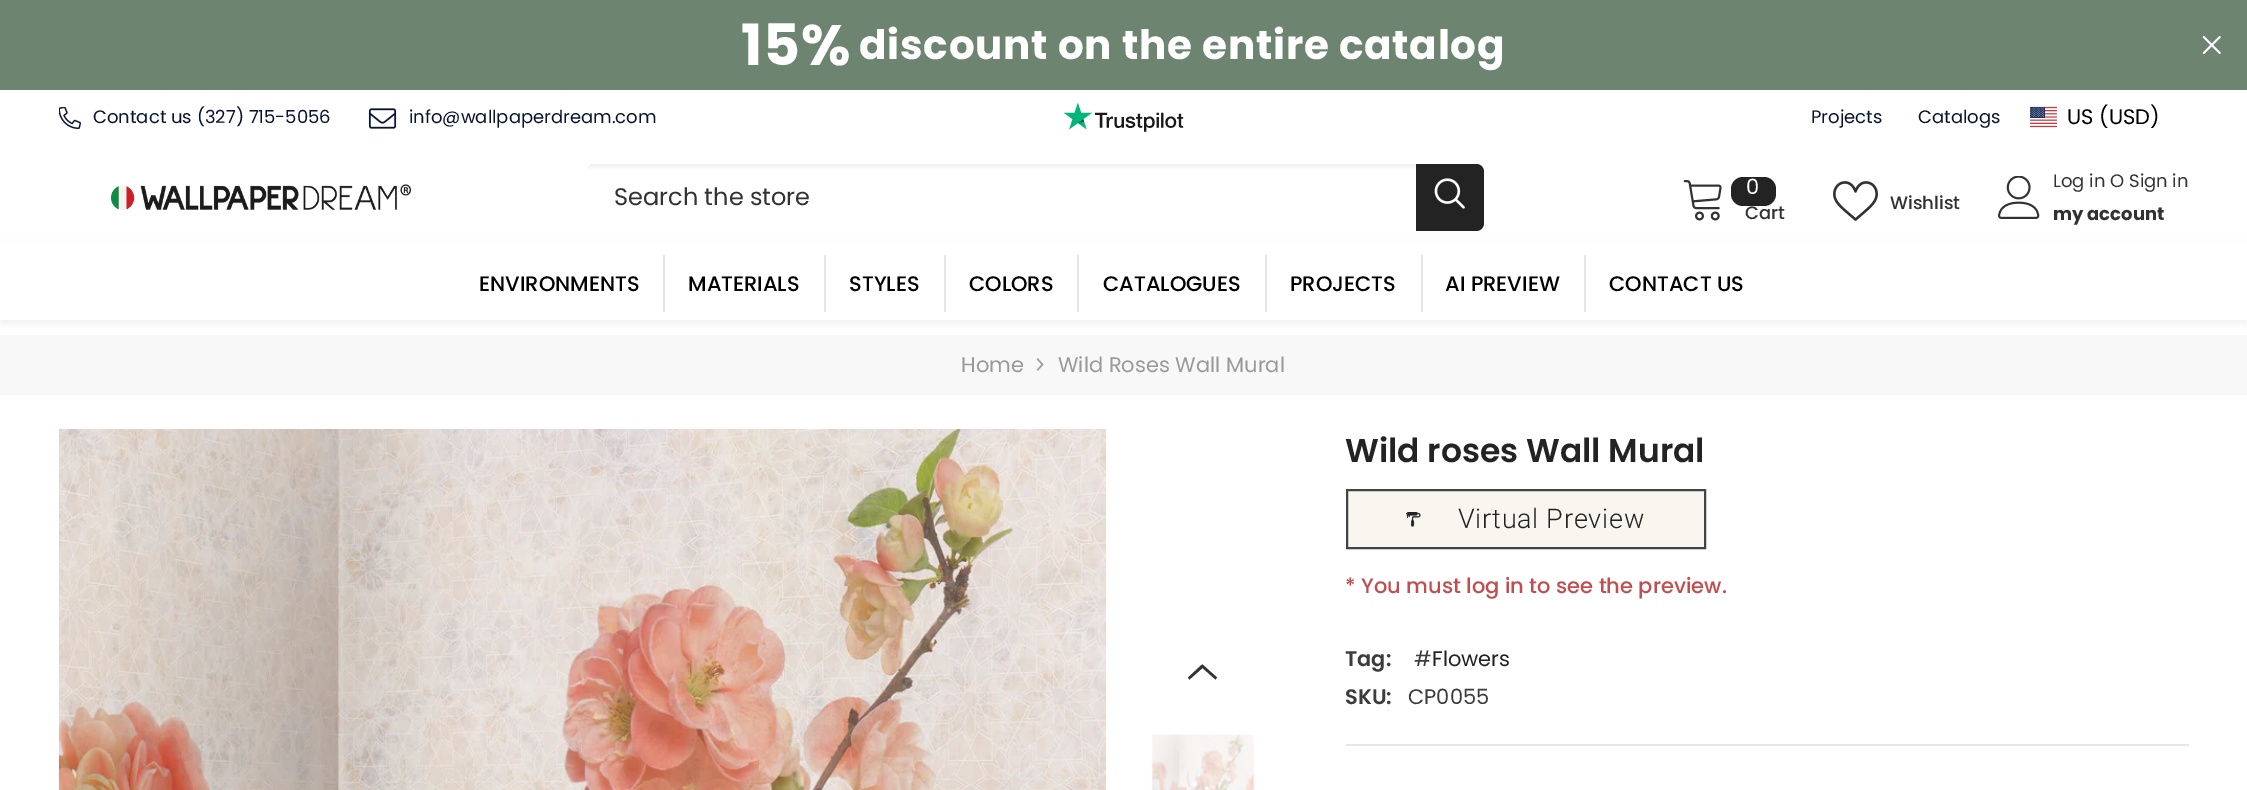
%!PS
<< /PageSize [2247 790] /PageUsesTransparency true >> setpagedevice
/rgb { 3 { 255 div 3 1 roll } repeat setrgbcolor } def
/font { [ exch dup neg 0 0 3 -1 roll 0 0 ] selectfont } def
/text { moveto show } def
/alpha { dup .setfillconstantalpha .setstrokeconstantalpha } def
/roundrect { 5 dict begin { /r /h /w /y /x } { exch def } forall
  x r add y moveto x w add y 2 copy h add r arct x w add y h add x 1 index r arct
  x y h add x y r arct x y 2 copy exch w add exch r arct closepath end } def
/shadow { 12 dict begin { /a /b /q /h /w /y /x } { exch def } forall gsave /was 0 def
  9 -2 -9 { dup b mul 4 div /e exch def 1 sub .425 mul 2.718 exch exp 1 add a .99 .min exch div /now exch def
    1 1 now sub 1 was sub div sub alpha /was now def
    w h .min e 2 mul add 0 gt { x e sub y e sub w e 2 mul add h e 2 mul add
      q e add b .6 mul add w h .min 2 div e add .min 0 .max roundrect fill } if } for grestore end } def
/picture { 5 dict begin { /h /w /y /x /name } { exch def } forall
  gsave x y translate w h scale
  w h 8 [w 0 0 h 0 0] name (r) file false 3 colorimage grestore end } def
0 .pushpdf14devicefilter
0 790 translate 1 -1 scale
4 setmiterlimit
255 255 255 rgb
0 0 2247 790 rectfill
109 132 113 rgb
0 0 2247 90 rectfill
(img_01.rgb) 2202 36 19 18 picture
(img_02.rgb) 59 107 22 22 picture
(img_03.rgb) 368 108 29 21 picture
(img_04.rgb) 1063 102 121 30 picture
(img_05.rgb) 2030 106 27 22 picture
(img_06.rgb) 111 184 300 26 picture
gsave 587 164 897 67 8 roundrect clip newpath
<< /ShadingType 2 /ColorSpace /DeviceRGB /Coords [1035 163 1035 231] /Extend [true true] /Function << /FunctionType 3 /Domain [0 1] /Functions [<< /FunctionType 2 /Domain [0 1] /C0 [0.914 0.922 0.933] /C1 [1 1 1] /N 1 >> << /FunctionType 2 /Domain [0 1] /C0 [1 1 1] /C1 [1 1 1] /N 1 >>] /Bounds [0.1] /Encode [0 1 0 1] >> >> shfill grestore
35 35 35 rgb
1416 164 moveto 60 0 rlineto 4.5 0 8 3.5 8 8 rcurveto 0 51 rlineto 0 4.5 -3.5 8 -8 8 rcurveto -60 0 rlineto closepath fill
(img_07.rgb) 1434 178 31 31 picture
(img_08.rgb) 1683 180 39 41 picture
1731 177 45 29 12 roundrect fill
(img_09.rgb) 1833 181 45 40 picture
(img_10.rgb) 1998 176 42 43 picture
248 248 248 rgb
0 335 2247 60 rectfill
0 0 0 rgb
0 245 2247 79 0 4 0.05 shadow
255 255 255 rgb
0 242 2247 78 rectfill
230 230 230 rgb
663 255 2 57 rectfill
824 255 2 57 rectfill
944 255 2 57 rectfill
1077 255 2 57 rectfill
1265 255 2 57 rectfill
1421 255 2 57 rectfill
1584 255 2 57 rectfill
(img_11.rgb) 1036 358 8 13 picture
(img_12.rgb) 59 429 1047 361 picture
50 50 50 rgb
1188 677.5 moveto 1.5 2 rlineto 13 -11.5 rlineto 13 11.5 rlineto 1.5 -2 rlineto -14.5 -13 rlineto -1 0.5 rlineto closepath fill
(img_13.rgb) 1151 734 104 56 picture
249 245 239 rgb
1347 490 moveto 358 0 rlineto 0 58 rlineto -358 0 rlineto closepath gsave fill grestore
68 68 68 rgb
2 setlinewidth
stroke
(img_14.rgb) 1406 512 15 15 picture
230 230 230 rgb
1346 744 843 2 rectfill
/Poppins-Bold 57 font
255 255 255 rgb
741 65 moveto 0.75 0 (15%) ashow
/Poppins-Bold 40.5 font
859 59 moveto 0.75 0 (discount on the entire catalog) ashow
/Poppins-Regular 18 font
6 20 46 rgb
(Contact us \(327\) 715-5056) 93 123 text
(info@wallpaperdream.com) 409 123 text
(Projects) 1811 123 text
(Catalogs) 1918 123 text
/Poppins-Regular 21 font
0 0 0 rgb
(US \(USD\)) 2067 124 text
/Poppins-Regular 24 font
50 50 50 rgb
(Search the store) 614 205 text
/Poppins-Regular 21 font
255 255 255 rgb
(0) 1746 194 text
/Poppins-Medium 18 font
50 50 50 rgb
(Cart) 1745 219 text
(Wishlist) 1890 209 text
/Poppins-Regular 18 font
(Log in O Sign in) 2053 187 text
/Poppins-Bold 18 font
(my account) 2053 220 text
/Poppins-Medium 21 font
0 0 0 rgb
(ENVIRONMENTS) 479 291 text
(MATERIALS) 688 291 text
(STYLES) 849 291 text
(COLORS) 969 291 text
(CATALOGUES) 1103 291 text
(PROJECTS) 1290 291 text
(AI PREVIEW) 1445 291 text
(CONTACT US) 1609 291 text
/Poppins-Regular 21 font
153 153 153 rgb
(Home) 961 372 text
(Wild Roses Wall Mural) 1058 372 text
/Poppins-SemiBold 33 font
35 35 35 rgb
(Wild roses Wall Mural) 1345 462 text
/Roboto-Light 27 font
1458 528 moveto 0.75 0 (Virtual Preview) ashow
/Poppins-Medium 21 font
192 78 78 rgb
(* You must log in to see the preview.) 1345 593 text
/Poppins-SemiBold 21 font
60 60 60 rgb
(Tag:) 1345 666 text
/Poppins-Regular 21 font
(#) 1414 666 text
35 35 35 rgb
(Flowers) 1432 666 text
/Poppins-SemiBold 21 font
60 60 60 rgb
(SKU:) 1345 704 text
/Poppins-Regular 21 font
(CP0055) 1408 704 text
.poppdf14devicefilter showpage
